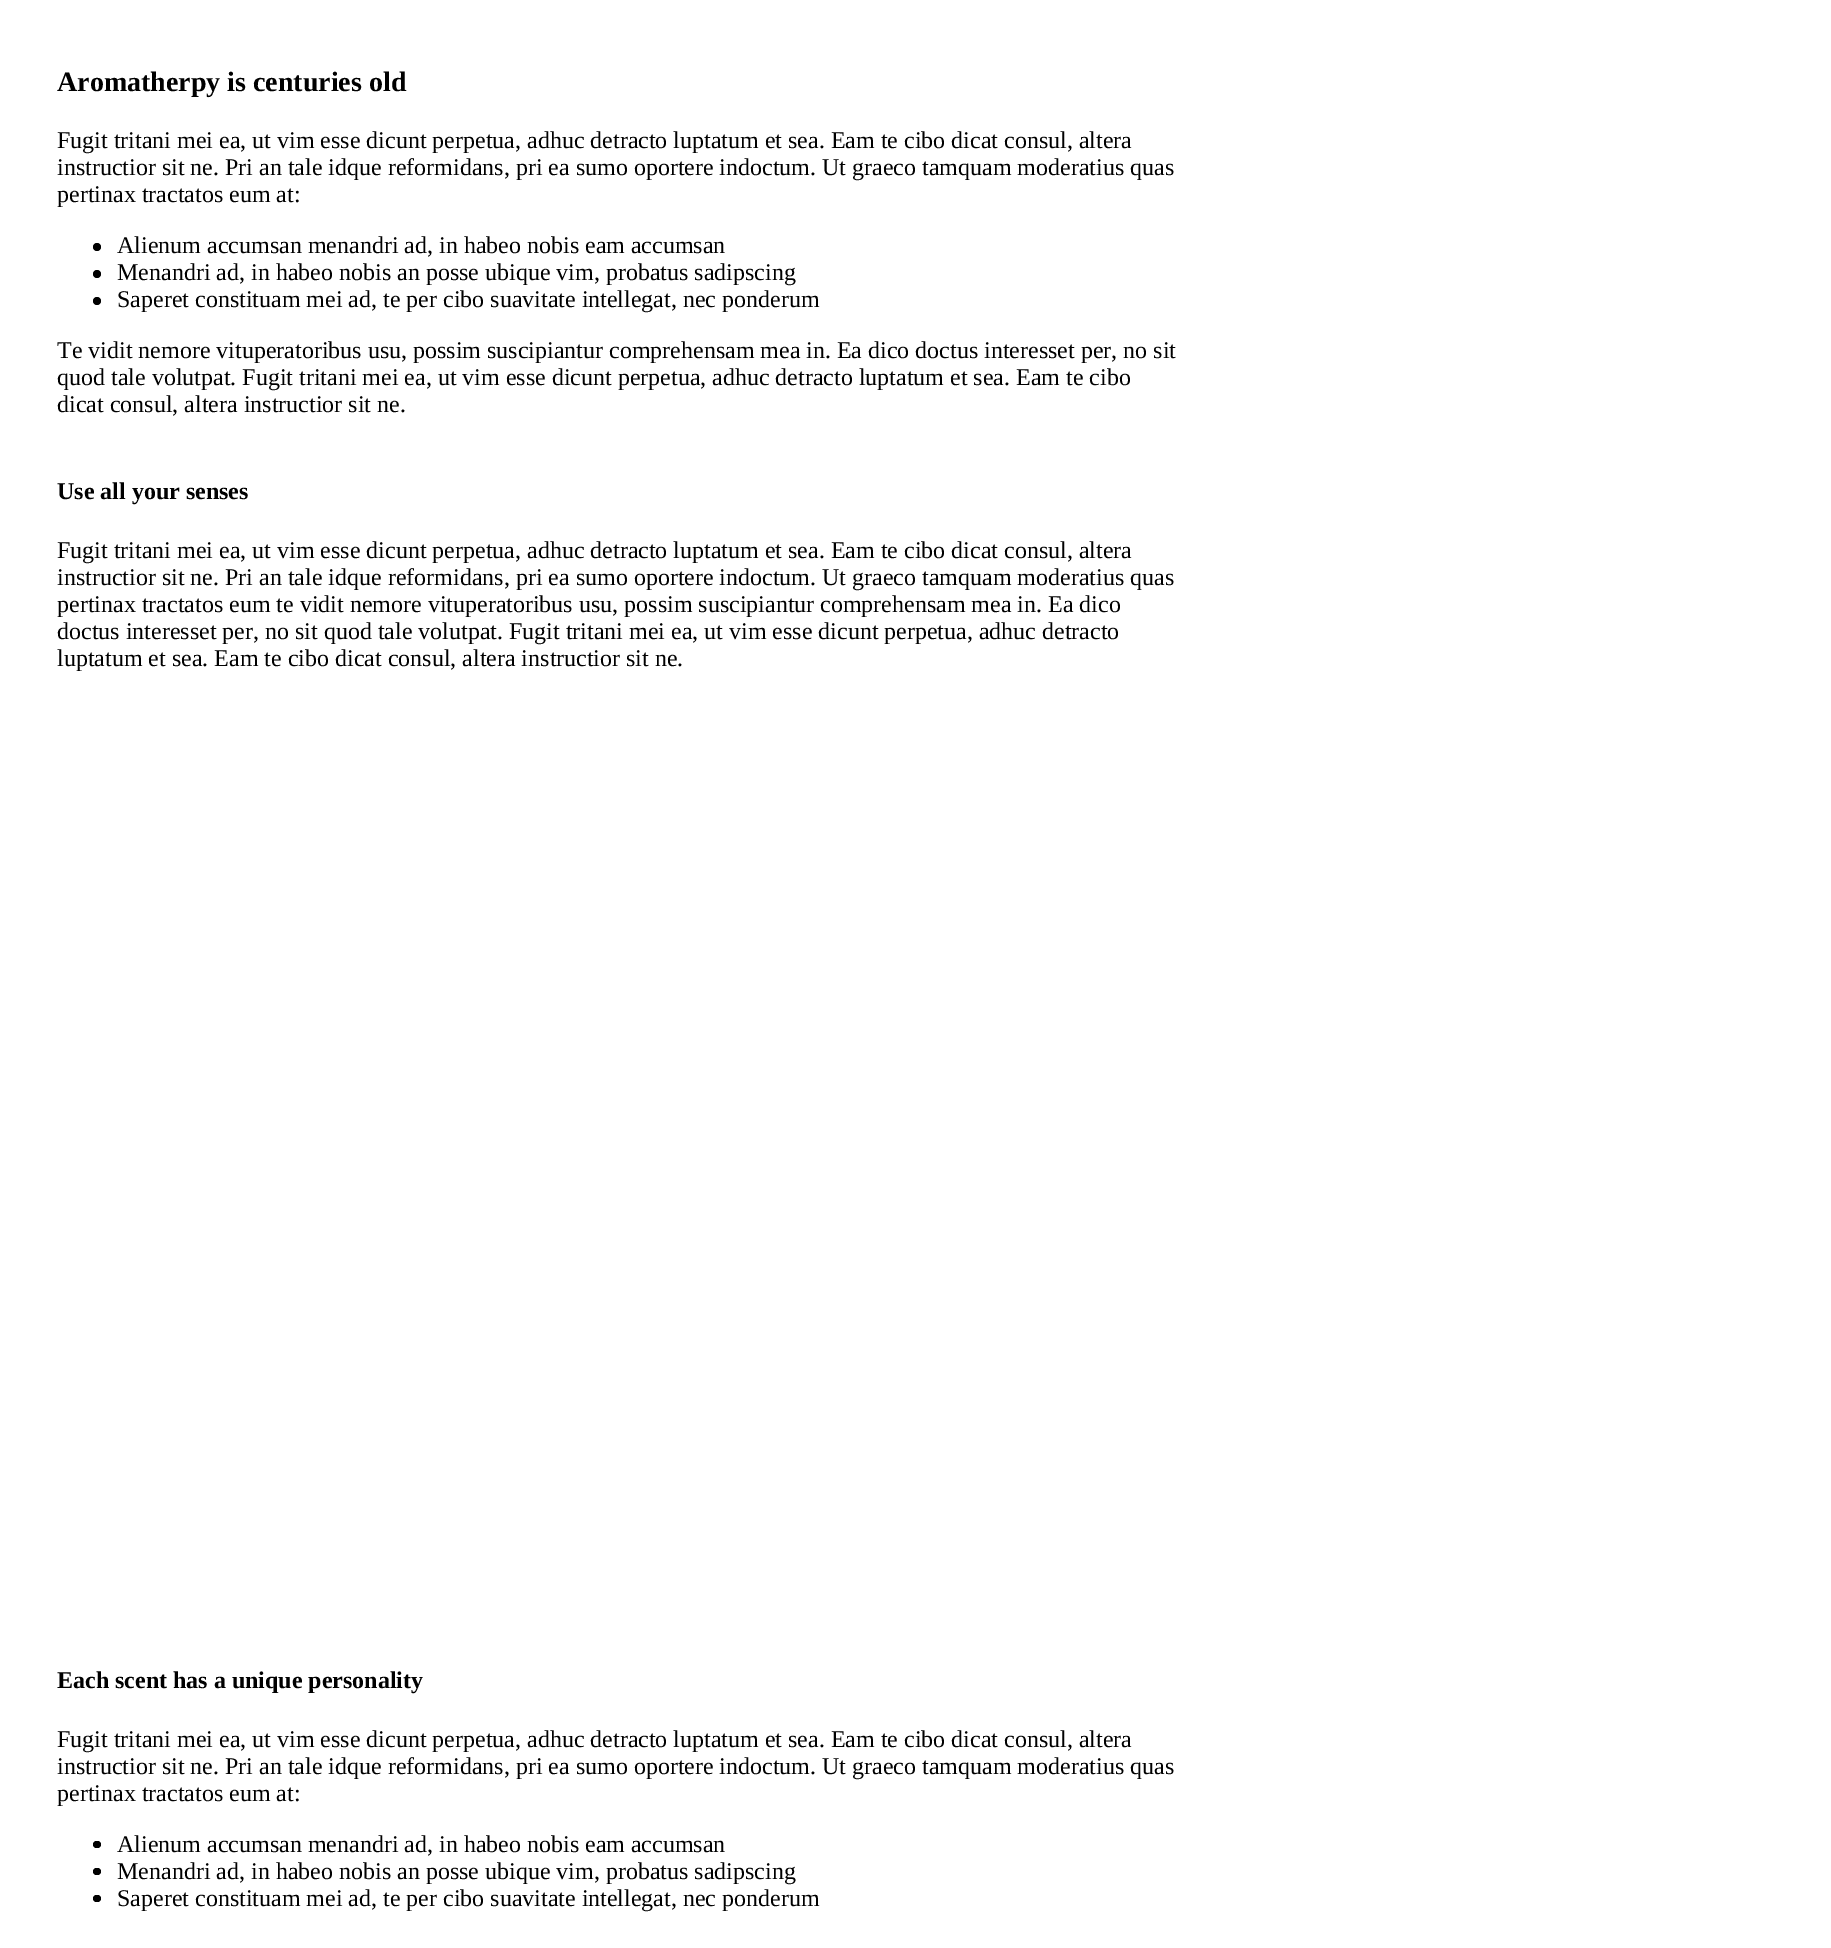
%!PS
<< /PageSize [1831 1948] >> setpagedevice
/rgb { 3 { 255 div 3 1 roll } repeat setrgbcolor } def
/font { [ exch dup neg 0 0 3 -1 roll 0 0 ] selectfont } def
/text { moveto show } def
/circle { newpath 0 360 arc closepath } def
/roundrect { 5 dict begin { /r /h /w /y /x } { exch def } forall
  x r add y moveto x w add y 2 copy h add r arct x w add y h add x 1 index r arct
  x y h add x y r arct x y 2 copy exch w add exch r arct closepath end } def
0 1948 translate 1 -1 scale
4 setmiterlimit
255 255 255 rgb
0 0 1831 1948 rectfill
0 0 0 rgb
97 247 4 circle fill
97 274 4 circle fill
97 301 4 circle fill
93 1841 8 7 3.5 roundrect fill
93 1868 8 7 3.5 roundrect fill
93 1895 8 7 3.5 roundrect fill
/LiberationSerif-Bold 28 font
(Aromatherpy is centuries old) 57 91 text
/LiberationSerif-Regular 24 font
(Fugit tritani mei ea, ut vim esse dicunt perpetua, adhuc detracto luptatum et sea. Eam te cibo dicat consul, altera) 57 148 text
(instructior sit ne. Pri an tale idque reformidans, pri ea sumo oportere indoctum. Ut graeco tamquam moderatius quas) 57 175 text
(pertinax tractatos eum at:) 57 202 text
(Alienum accumsan menandri ad, in habeo nobis eam accumsan) 117 253 text
(Menandri ad, in habeo nobis an posse ubique vim, probatus sadipscing) 117 280 text
(Saperet constituam mei ad, te per cibo suavitate intellegat, nec ponderum) 117 307 text
(Te vidit nemore vituperatoribus usu, possim suscipiantur comprehensam mea in. Ea dico doctus interesset per, no sit) 57 358 text
(quod tale volutpat. Fugit tritani mei ea, ut vim esse dicunt perpetua, adhuc detracto luptatum et sea. Eam te cibo) 57 385 text
(dicat consul, altera instructior sit ne.) 57 412 text
/LiberationSerif-Bold 24 font
(Use all your senses) 57 499 text
/LiberationSerif-Regular 24 font
(Fugit tritani mei ea, ut vim esse dicunt perpetua, adhuc detracto luptatum et sea. Eam te cibo dicat consul, altera) 57 558 text
(instructior sit ne. Pri an tale idque reformidans, pri ea sumo oportere indoctum. Ut graeco tamquam moderatius quas) 57 585 text
(pertinax tractatos eum te vidit nemore vituperatoribus usu, possim suscipiantur comprehensam mea in. Ea dico) 57 612 text
(doctus interesset per, no sit quod tale volutpat. Fugit tritani mei ea, ut vim esse dicunt perpetua, adhuc detracto) 57 639 text
(luptatum et sea. Eam te cibo dicat consul, altera instructior sit ne.) 57 666 text
/LiberationSerif-Bold 24 font
(Each scent has a unique personality) 57 1688 text
/LiberationSerif-Regular 24 font
(Fugit tritani mei ea, ut vim esse dicunt perpetua, adhuc detracto luptatum et sea. Eam te cibo dicat consul, altera) 57 1747 text
(instructior sit ne. Pri an tale idque reformidans, pri ea sumo oportere indoctum. Ut graeco tamquam moderatius quas) 57 1774 text
(pertinax tractatos eum at:) 57 1801 text
(Alienum accumsan menandri ad, in habeo nobis eam accumsan) 117 1852 text
(Menandri ad, in habeo nobis an posse ubique vim, probatus sadipscing) 117 1879 text
(Saperet constituam mei ad, te per cibo suavitate intellegat, nec ponderum) 117 1906 text
showpage
